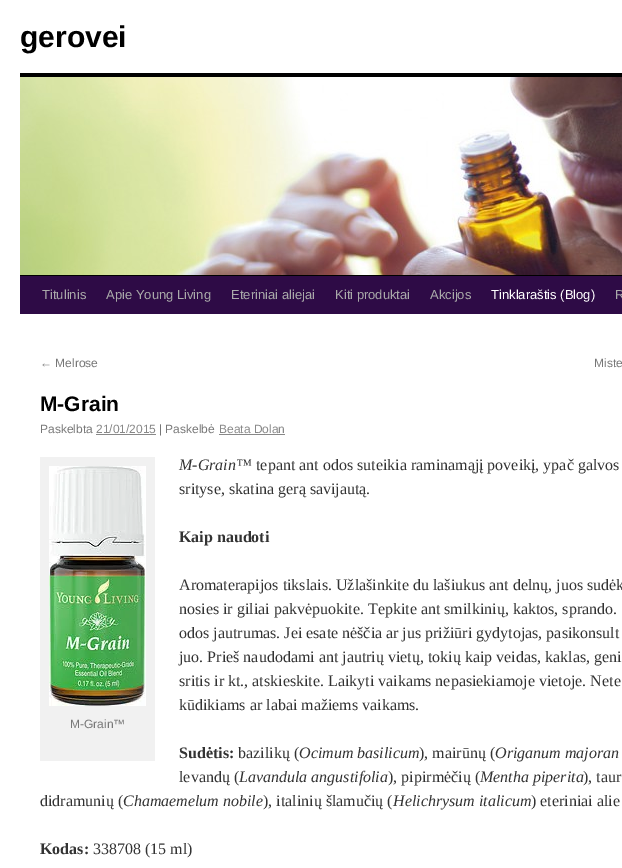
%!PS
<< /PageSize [622 868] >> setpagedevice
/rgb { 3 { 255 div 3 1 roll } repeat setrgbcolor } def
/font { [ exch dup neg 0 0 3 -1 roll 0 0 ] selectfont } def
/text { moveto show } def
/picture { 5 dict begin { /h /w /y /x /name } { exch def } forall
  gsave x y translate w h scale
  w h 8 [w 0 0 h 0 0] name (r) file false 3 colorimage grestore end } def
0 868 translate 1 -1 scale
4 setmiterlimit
255 255 255 rgb
0 0 622 868 rectfill
0 0 0 rgb
20 73 602 4 rectfill
20 275 602 1 rectfill
(img_01.rgb) 20 77 602 198 picture
46 11 70 rgb
20 276 602 38 rectfill
136 136 136 rgb
96 434 60 1 rectfill
219 434 66 1 rectfill
241 241 241 rgb
40 457 115 304 rectfill
(img_02.rgb) 49 466 97 240 picture
/LiberationSans-Bold 30 font
0 0 0 rgb
(gerovei) 20 47 text
/LiberationSans-Regular 13 font
170 170 170 rgb
(Titulinis) 42 299 text
(Apie Young Living) 106 299 text
(Eteriniai aliejai) 231 299 text
(Kiti produktai) 335 299 text
(Akcijos) 430 299 text
255 255 255 rgb
(Tinklaraštis \(Blog\)) 491 299 text
170 170 170 rgb
(R) 615 299 text
/LiberationSans-Regular 12 font
119 119 119 rgb
(← Melrose) 40 367 text
(Miste) 594 367 text
/LiberationSans-Bold 21 font
0 0 0 rgb
(M-Grain) 40 411 text
/LiberationSans-Regular 12 font
119 119 119 rgb
(Paskelbta) 40 433 text
136 136 136 rgb
(21/01/2015) 96 433 text
119 119 119 rgb
(| Paskelbė) 159 433 text
136 136 136 rgb
(Beata Dolan) 219 433 text
/LiberationSerif-Italic 16 font
51 51 51 rgb
(M-Grain™) 179 470 text
/LiberationSerif-Regular 16 font
(tepant ant odos suteikia raminamąjį poveikį, ypač galvos) 256 470 text
(srityse, skatina gerą savijautą.) 179 494 text
/LiberationSerif-Bold 16 font
(Kaip naudoti) 179 542 text
/LiberationSerif-Regular 16 font
(Aromaterapijos tikslais. Užlašinkite du lašiukus ant delnų, juos sudėk) 179 590 text
(nosies ir giliai pakvėpuokite. Tepkite ant smilkinių, kaktos, sprando.) 179 614 text
(odos jautrumas. Jei esate nėščia ar jus prižiūri gydytojas, pasikonsult) 179 638 text
(juo. Prieš naudodami ant jautrių vietų, tokių kaip veidas, kaklas, geni) 179 662 text
(sritis ir kt., atskieskite. Laikyti vaikams nepasiekiamoje vietoje. Nete) 179 686 text
(kūdikiams ar labai mažiems vaikams.) 179 710 text
/LiberationSans-Regular 12 font
119 119 119 rgb
(M-Grain™) 70 728 text
/LiberationSerif-Bold 16 font
51 51 51 rgb
(Sudėtis:) 179 758 text
/LiberationSerif-Regular 16 font
(bazilikų \() 238 758 text
/LiberationSerif-Italic 16 font
(Ocimum basilicum) 299 758 text
/LiberationSerif-Regular 16 font
(\), mairūnų \() 419 758 text
/LiberationSerif-Italic 16 font
(Origanum majoran) 495 758 text
/LiberationSerif-Regular 16 font
(levandų \() 179 782 text
/LiberationSerif-Italic 16 font
(Lavandula angustifolia) 239 782 text
/LiberationSerif-Regular 16 font
(\), pipirmėčių \() 388 782 text
/LiberationSerif-Italic 16 font
(Mentha piperita) 480 782 text
/LiberationSerif-Regular 16 font
(\), taur) 583 782 text
(didramunių \() 40 806 text
/LiberationSerif-Italic 16 font
(Chamaemelum nobile) 123 806 text
/LiberationSerif-Regular 16 font
(\), italinių šlamučių \() 263 806 text
/LiberationSerif-Italic 16 font
(Helichrysum italicum) 393 806 text
/LiberationSerif-Regular 16 font
(\) eteriniai alie) 531 806 text
/LiberationSerif-Bold 16 font
(Kodas:) 40 854 text
/LiberationSerif-Regular 16 font
(338708 \(15 ml\)) 93 854 text
showpage
